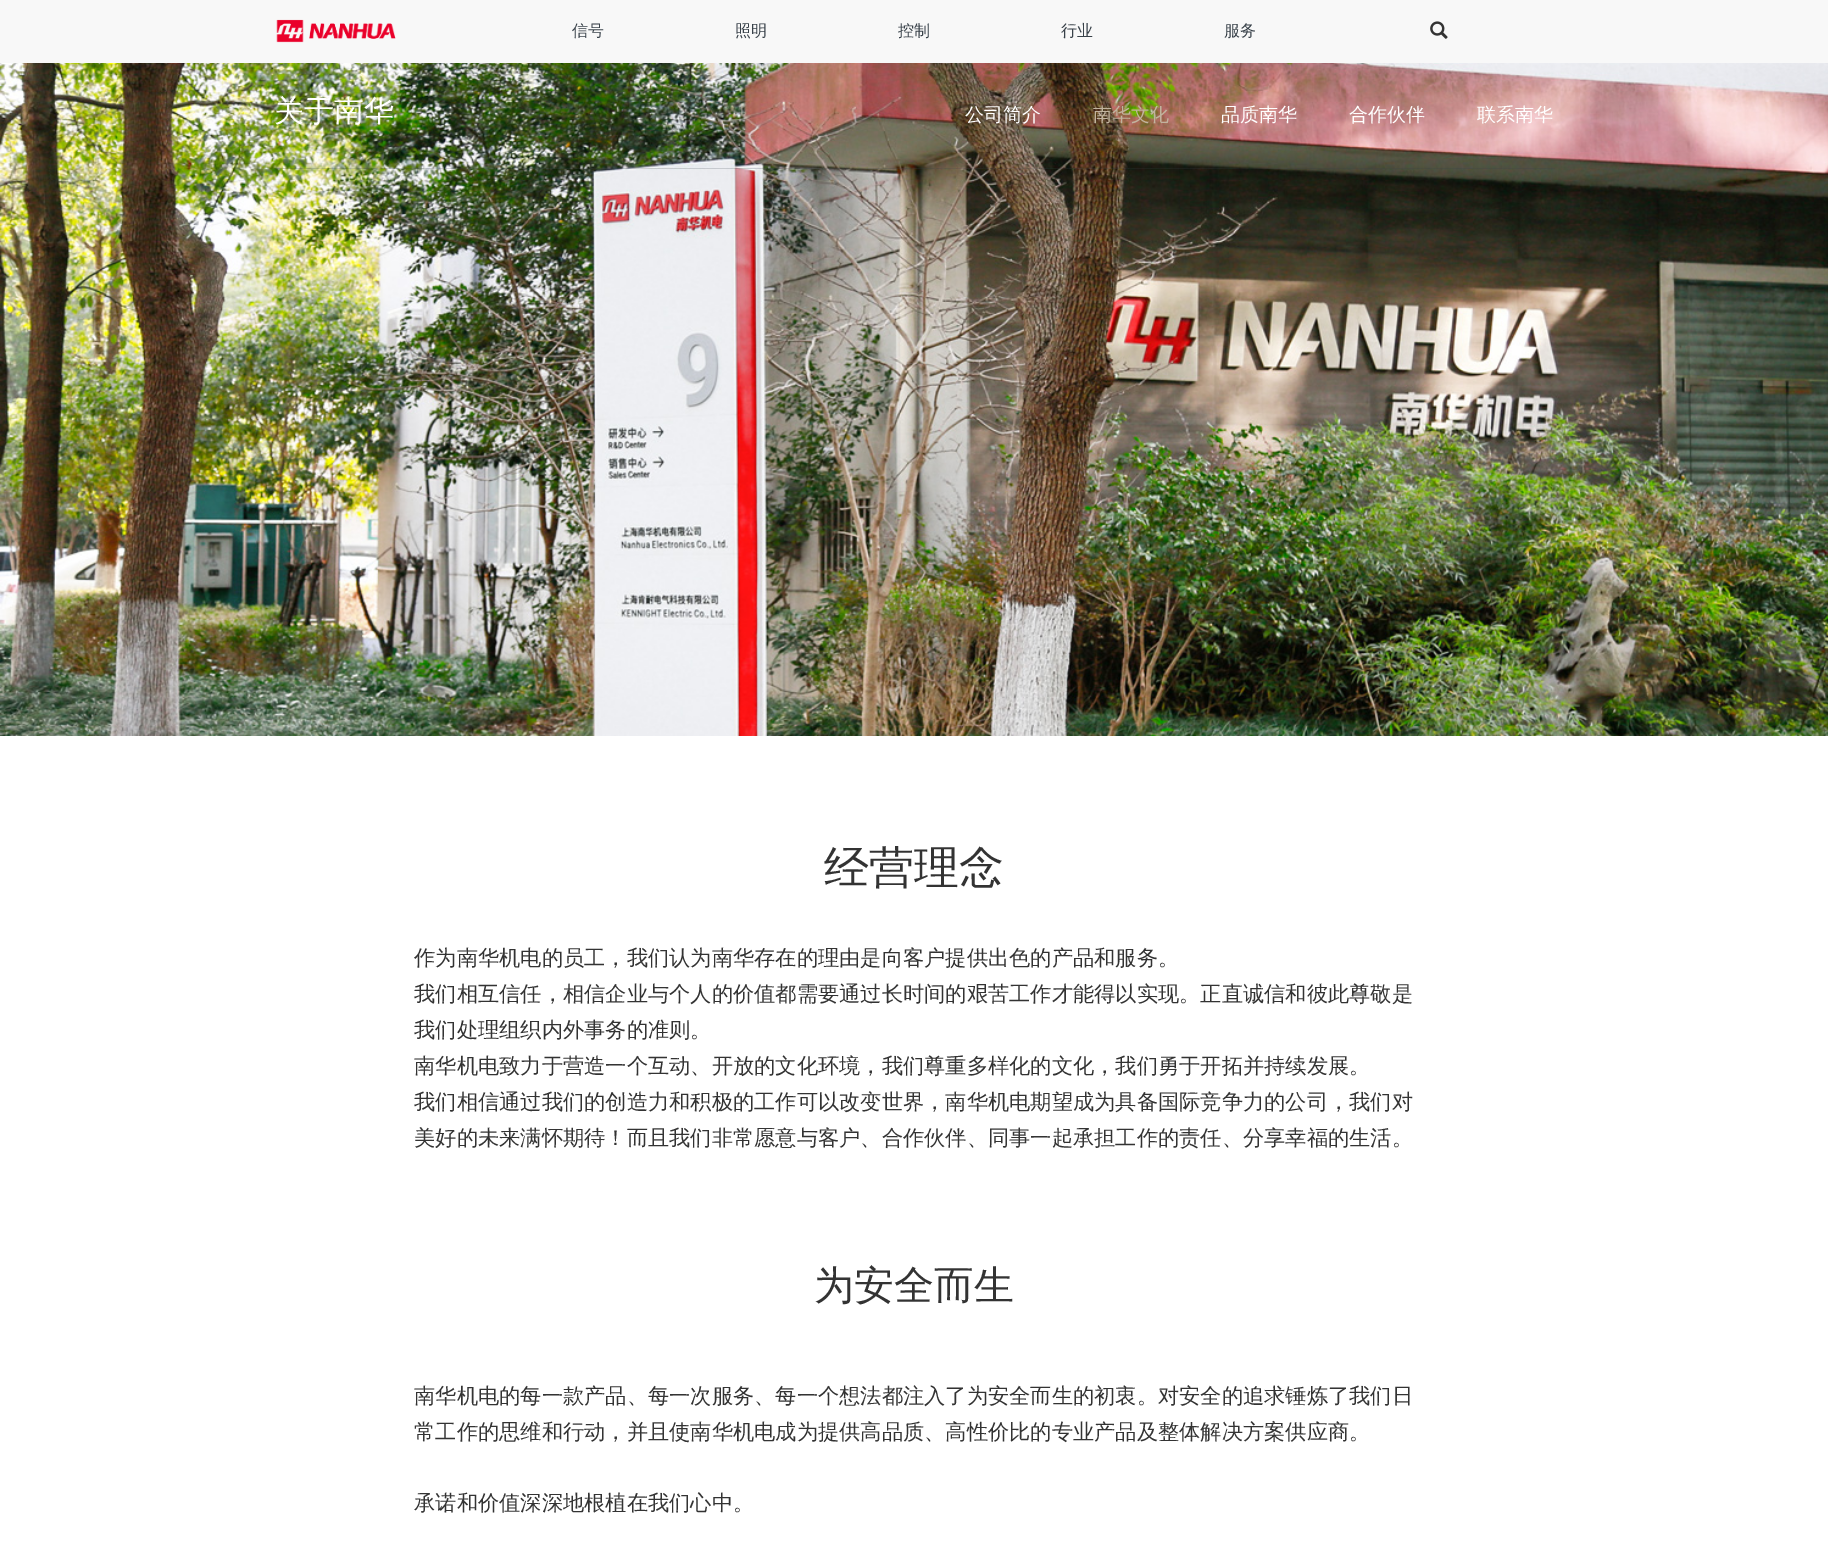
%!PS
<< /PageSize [1828 1541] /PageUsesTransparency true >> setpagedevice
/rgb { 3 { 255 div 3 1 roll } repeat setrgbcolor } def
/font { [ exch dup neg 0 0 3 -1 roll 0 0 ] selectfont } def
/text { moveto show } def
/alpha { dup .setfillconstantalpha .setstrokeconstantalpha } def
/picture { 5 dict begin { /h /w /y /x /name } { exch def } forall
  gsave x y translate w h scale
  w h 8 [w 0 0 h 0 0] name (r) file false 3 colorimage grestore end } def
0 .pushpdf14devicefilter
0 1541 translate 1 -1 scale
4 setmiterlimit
255 255 255 rgb
0 0 1828 1541 rectfill
248 248 248 rgb
0 0 1828 63 rectfill
(img_01.rgb) 276 19 120 24 picture
(img_02.rgb) 1430 21 18 18 picture
(img_03.rgb) 0 63 1828 673 picture
0.2 alpha
56 65 73 rgb
275 168 1280 1 rectfill
/WenQuanYiZenHei-Medium 16 font
1 alpha
(信号) 572 36 text
(照明) 735 36 text
(控制) 898 36 text
(行业) 1061 36 text
(服务) 1224 36 text
/WenQuanYiZenHei-Medium 30 font
255 255 255 rgb
(关于南华) 274 121 text
/WenQuanYiZenHei-Medium 19 font
(公司简介) 965 121 text
193 179 158 rgb
(南华文化) 1093 121 text
255 255 255 rgb
(品质南华) 1221 121 text
(合作伙伴) 1349 121 text
(联系南华) 1477 121 text
/WenQuanYiZenHei-Medium 45 font
51 51 51 rgb
(经营理念) 824 883 text
/WenQuanYiZenHei-Medium 21.25 font
(作为南华机电的员工，我们认为南华存在的理由是向客户提供出色的产品和服务。) 414 965 text
(我们相互信任，相信企业与个人的价值都需要通过长时间的艰苦工作才能得以实现。正直诚信和彼此尊敬是) 414 1001 text
(我们处理组织内外事务的准则。) 414 1037 text
(南华机电致力于营造一个互动、开放的文化环境，我们尊重多样化的文化，我们勇于开拓并持续发展。) 414 1073 text
(我们相信通过我们的创造力和积极的工作可以改变世界，南华机电期望成为具备国际竞争力的公司，我们对) 414 1109 text
(美好的未来满怀期待！而且我们非常愿意与客户、合作伙伴、同事一起承担工作的责任、分享幸福的生活。) 414 1145 text
/WenQuanYiZenHei-Medium 40 font
(为安全而生) 814 1299 text
/WenQuanYiZenHei-Medium 21.25 font
(南华机电的每一款产品、每一次服务、每一个想法都注入了为安全而生的初衷。对安全的追求锤炼了我们日) 414 1403 text
(常工作的思维和行动，并且使南华机电成为提供高品质、高性价比的专业产品及整体解决方案供应商。) 414 1439 text
(承诺和价值深深地根植在我们心中。) 414 1510 text
.poppdf14devicefilter showpage
